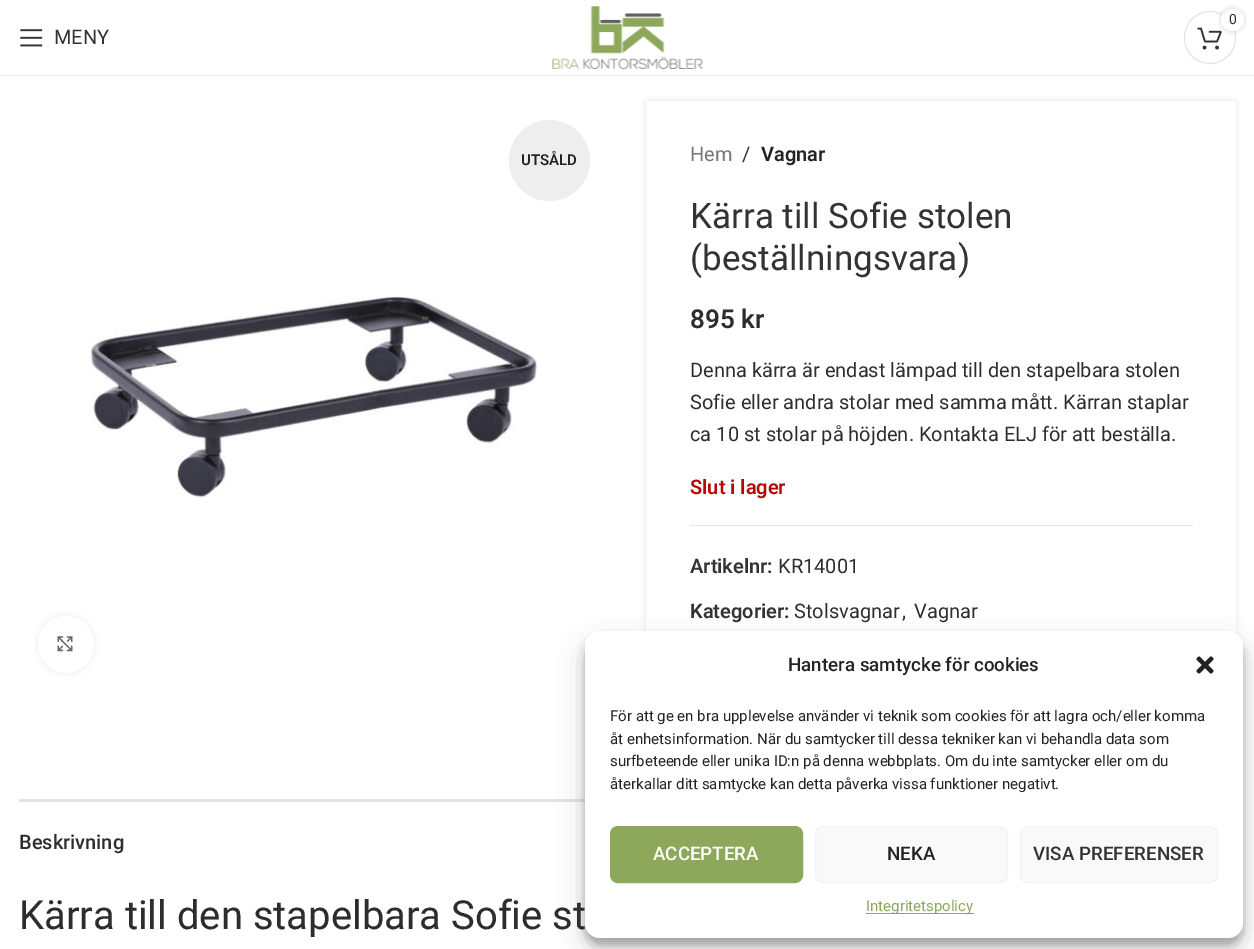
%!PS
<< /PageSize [1254 949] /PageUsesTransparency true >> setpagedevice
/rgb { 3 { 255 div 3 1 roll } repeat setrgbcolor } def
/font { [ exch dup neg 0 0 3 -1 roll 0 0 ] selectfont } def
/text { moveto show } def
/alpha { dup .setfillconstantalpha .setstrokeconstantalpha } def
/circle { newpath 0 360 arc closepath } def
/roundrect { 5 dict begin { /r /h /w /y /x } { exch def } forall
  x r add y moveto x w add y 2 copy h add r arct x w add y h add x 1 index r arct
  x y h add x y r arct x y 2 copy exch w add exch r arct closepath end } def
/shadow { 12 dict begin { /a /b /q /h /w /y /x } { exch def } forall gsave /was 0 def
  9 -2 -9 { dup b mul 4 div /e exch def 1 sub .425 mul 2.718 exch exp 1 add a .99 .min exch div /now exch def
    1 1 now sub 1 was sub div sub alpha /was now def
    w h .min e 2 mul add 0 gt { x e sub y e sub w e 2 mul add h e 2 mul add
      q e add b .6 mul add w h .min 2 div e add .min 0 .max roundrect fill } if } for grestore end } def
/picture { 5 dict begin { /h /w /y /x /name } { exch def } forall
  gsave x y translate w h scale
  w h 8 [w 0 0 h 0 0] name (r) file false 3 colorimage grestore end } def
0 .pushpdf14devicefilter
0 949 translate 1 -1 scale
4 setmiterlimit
255 255 255 rgb
0 0 1254 949 rectfill
238 238 238 rgb
0 75 1254 1 rectfill
(img_01.rgb) 552 6 151 63 picture
228 228 228 rgb
1184.5 11.5 51 52 25.5 roundrect stroke
(img_02.rgb) 1197 27 25 23 picture
0 0 0 rgb
1221 9 23 22 11 2.5 0.17 shadow
255 255 255 rgb
1221 9 23 22 11 roundrect fill
(img_03.rgb) 20 29 23 18 picture
238 238 238 rgb
549.5 160.5 40.5 circle fill
(img_04.rgb) 89 296 449 202 picture
0 0 0 rgb
38 616 56 57 28 3 0.08 shadow
255 255 255 rgb
38 616 56 57 28 roundrect fill
(img_05.rgb) 57 636 16 16 picture
0 0 0 rgb
646 101 590 635 0 3 0.1 shadow
255 255 255 rgb
646 101 590 533 rectfill
228 228 228 rgb
690 525 503 1 rectfill
19 799 566 3 rectfill
0 0 0 rgb
585 639 658 306 15 4 0.23 shadow
585 644 658 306 15 12.5 0.19 shadow
255 255 255 rgb
585 631 658 307 15 roundrect fill
(img_06.rgb) 1196 656 18 18 picture
141 167 91 rgb
610.5 826.5 192 56 7.5 roundrect gsave fill grestore
stroke
249 249 249 rgb
815.5 826.5 192 56 7.5 roundrect gsave fill grestore
242 242 242 rgb
stroke
249 249 249 rgb
1020.5 826.5 197 56 7.5 roundrect gsave fill grestore
242 242 242 rgb
stroke
141 167 91 rgb
866 913 108 1 rectfill
/Roboto-Regular 14 font
45 45 45 rgb
(0) 1229 24 text
/Roboto-Regular 20 font
51 51 51 rgb
(MENY) 54 44 text
/Roboto-SemiBold 15 font
36 36 36 rgb
(UTSÅLD) 521 165 text
/Roboto-Regular 20 font
118 118 118 rgb
(Hem) 690 161 text
45 45 45 rgb
(/) 742 161 text
/Roboto-SemiBold 20 font
36 36 36 rgb
(Vagnar) 761 161 text
/Roboto-Regular 35 font
51 51 51 rgb
(Kärra till Sofie stolen) 690 228 text
(\(beställningsvara\)) 690 270 text
/Roboto-SemiBold 26 font
45 45 45 rgb
(895 kr) 690 328 text
/Roboto-Regular 20 font
(Denna kärra är endast lämpad till den stapelbara stolen) 690 377 text
(Sofie eller andra stolar med samma mått. Kärran staplar) 690 409 text
(ca 10 st stolar på höjden. Kontakta ELJ för att beställa.) 690 441 text
/Roboto-SemiBold 20 font
181 8 8 rgb
(Slut i lager) 690 494 text
51 51 51 rgb
(Artikelnr:) 690 573 text
/Roboto-Regular 20 font
45 45 45 rgb
(KR14001) 778 573 text
/Roboto-SemiBold 20 font
51 51 51 rgb
(Kategorier:) 690 618 text
/Roboto-Regular 20 font
45 45 45 rgb
(Stolsvagnar) 794 618 text
(,) 902 618 text
(Vagnar) 914 618 text
/Roboto-Medium 20 font
(Beskrivning) 19 849 text
/Roboto-Regular 40 font
(Kärra till den stapelbara Sofie st) 19 929 text
/Roboto-Medium 18.75 font
36 36 36 rgb
(Hantera samtycke för cookies) 788 671 text
/Roboto-Regular 15 font
(För att ge en bra upplevelse använder vi teknik som cookies för att lagra och/eller komma) 610 721 text
(åt enhetsinformation. När du samtycker till dessa tekniker kan vi behandla data som) 610 744 text
(surfbeteende eller unika ID:n på denna webbplats. Om du inte samtycker eller om du) 610 766 text
(återkallar ditt samtycke kan detta påverka vissa funktioner negativt.) 610 789 text
/Roboto-Medium 18.75 font
255 255 255 rgb
(ACCEPTERA) 653 860 text
36 36 36 rgb
(NEKA) 887 860 text
51 51 51 rgb
(VISA PREFERENSER) 1033 860 text
/Roboto-Regular 15 font
141 167 91 rgb
(Integritetspolicy) 866 911 text
.poppdf14devicefilter showpage
